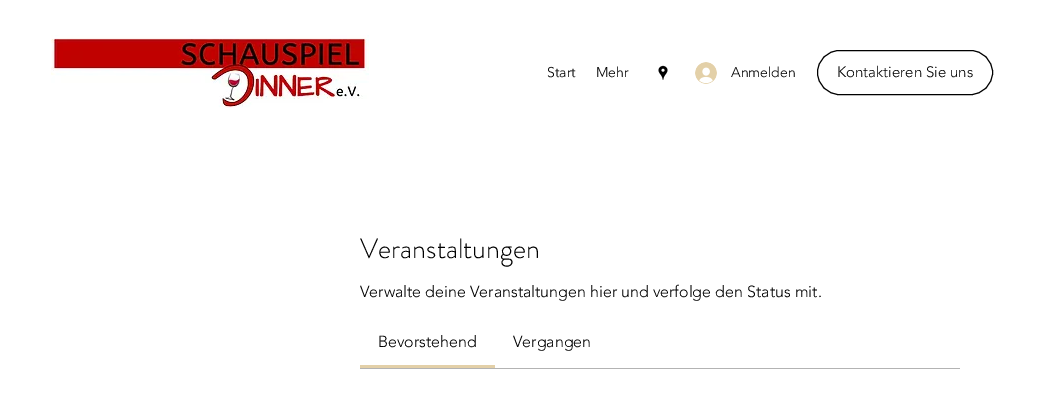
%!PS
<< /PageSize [1040 393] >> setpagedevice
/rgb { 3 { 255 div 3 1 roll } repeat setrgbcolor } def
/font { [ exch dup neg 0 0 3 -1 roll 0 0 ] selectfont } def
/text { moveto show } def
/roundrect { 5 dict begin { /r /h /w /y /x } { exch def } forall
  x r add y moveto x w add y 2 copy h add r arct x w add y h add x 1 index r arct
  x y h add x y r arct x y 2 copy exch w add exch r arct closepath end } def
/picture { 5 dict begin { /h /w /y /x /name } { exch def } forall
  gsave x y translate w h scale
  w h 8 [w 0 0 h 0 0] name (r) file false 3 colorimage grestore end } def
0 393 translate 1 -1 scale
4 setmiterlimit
255 255 255 rgb
0 0 1040 393 rectfill
(img_01.rgb) 51 35 318 73 picture
(img_02.rgb) 658 65 10 15 picture
(img_03.rgb) 695 62 22 22 picture
0 0 0 rgb
817.5 50.5 175 44 22 roundrect stroke
227 208 168 rgb
360 365 135 3 rectfill
179 179 179 rgb
360 368 600 1 rectfill
/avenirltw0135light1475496-Light 14 font
0 0 0 rgb
(Start) 547 77 text
(Mehr) 596 77 text
(Anmelden) 731 77 text
/avenirltw0135light1475496-Light 15 font
(Kontaktieren Sie uns) 837 77 text
/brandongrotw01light-Light 28 font
(Veranstaltungen) 360 258 text
/avenirltw0135light1475496-Light 16 font
(Verwalte deine Veranstaltungen hier und verfolge den Status mit.) 360 297 text
(Bevorstehend) 378 347 text
(Vergangen) 513 347 text
showpage
